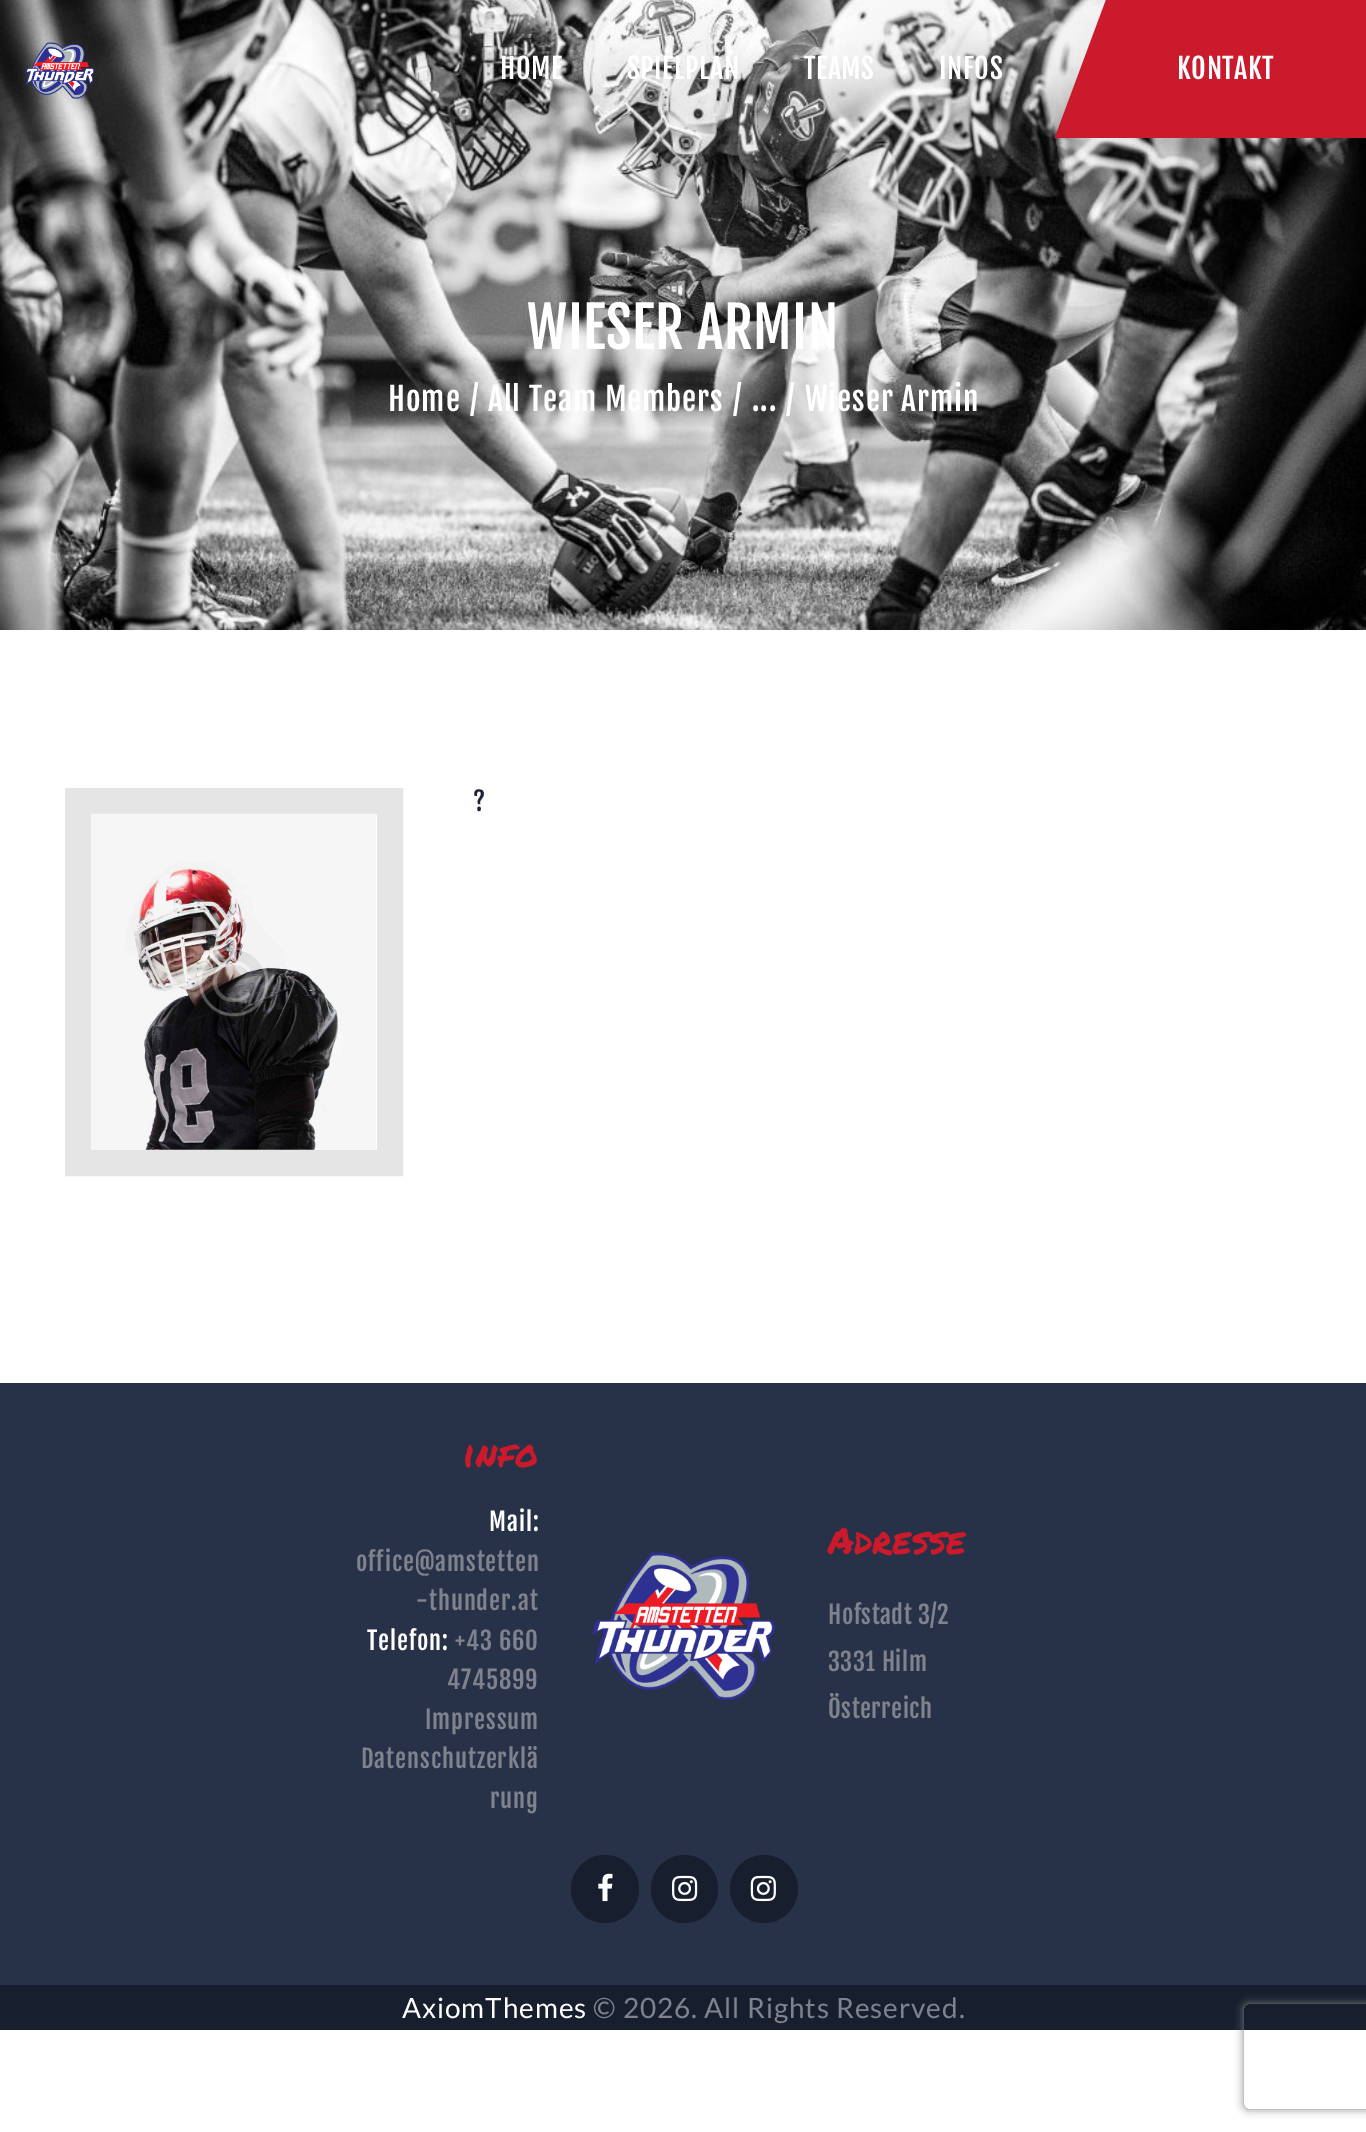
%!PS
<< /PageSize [1366 2132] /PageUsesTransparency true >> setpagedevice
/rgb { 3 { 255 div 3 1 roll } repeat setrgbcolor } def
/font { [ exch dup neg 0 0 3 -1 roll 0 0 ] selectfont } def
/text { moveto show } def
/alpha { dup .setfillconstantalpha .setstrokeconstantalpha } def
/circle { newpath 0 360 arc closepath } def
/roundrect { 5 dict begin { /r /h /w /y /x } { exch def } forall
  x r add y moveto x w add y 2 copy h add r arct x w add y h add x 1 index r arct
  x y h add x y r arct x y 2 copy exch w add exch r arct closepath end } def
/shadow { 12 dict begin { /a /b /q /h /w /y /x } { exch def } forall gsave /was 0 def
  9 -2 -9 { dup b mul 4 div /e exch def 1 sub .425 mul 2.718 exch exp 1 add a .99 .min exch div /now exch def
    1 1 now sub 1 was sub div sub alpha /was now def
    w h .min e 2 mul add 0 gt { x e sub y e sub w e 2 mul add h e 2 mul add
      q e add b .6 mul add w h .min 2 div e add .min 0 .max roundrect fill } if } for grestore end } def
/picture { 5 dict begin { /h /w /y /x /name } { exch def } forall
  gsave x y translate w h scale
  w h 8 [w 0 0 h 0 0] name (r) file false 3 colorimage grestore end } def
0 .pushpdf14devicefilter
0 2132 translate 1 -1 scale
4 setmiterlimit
255 255 255 rgb
0 0 1366 2132 rectfill
(img_01.rgb) 0 0 1366 630 picture
(img_02.rgb) 24 42 71 57 picture
gsave
1048 0 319 138 rectclip
203 26 43 rgb
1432 156 moveto -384 0 rlineto 65 -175 rlineto 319 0 rlineto closepath fill
grestore
229 229 229 rgb
26 setlinewidth
78 801 312 362 rectstroke
(img_03.rgb) 91 813 285 337 picture
39 49 71 rgb
0 1383 1366 602 rectfill
(img_04.rgb) 591 1552 185 149 picture
23 30 45 rgb
605 1889 34 circle fill
(img_05.rgb) 598 1873 15 29 picture
651 1855 67 68 33.5 roundrect fill
(img_06.rgb) 672 1875 26 27 picture
764 1889 34 circle fill
(img_07.rgb) 750 1875 26 27 picture
0 1985 1366 45 rectfill
gsave
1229 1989 moveto 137 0 rlineto 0 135 rlineto -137 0 rlineto closepath 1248 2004 moveto 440 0 rlineto 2 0 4 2 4 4 rcurveto 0 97 rlineto 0 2 -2 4 -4 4 rcurveto -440 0 rlineto -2 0 -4 -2 -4 -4 rcurveto 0 -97 rlineto 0 -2 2 -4 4 -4 rcurveto closepath eoclip newpath
128 128 128 rgb
1244 2004 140 105 4 4.5 1 shadow
grestore
/FjallaOne-Regular 28 font
255 255 255 rgb
500 79 moveto 0.5 0 (HOME) ashow
627 79 moveto 0.5 0 (SPIELPLAN) ashow
804 79 moveto 0.5 0 (TEAMS) ashow
939 79 moveto 0.5 0 (INFOS) ashow
1177 79 moveto 0.5 0 (KONTAKT) ashow
/FjallaOne-Regular 56 font
527 349 moveto 0.5 0 (WIESER ARMIN) ashow
/FjallaOne-Regular 31.5 font
388 411 moveto 0.9 0 (Home) ashow
470 411 moveto 0.9 0 (/) ashow
488 411 moveto 0.9 0 (All Team Members) ashow
733 411 moveto 0.9 0 (/) ashow
752 411 moveto 0.9 0 (...) ashow
786 411 moveto 0.9 0 (/) ashow
805 411 moveto 0.9 0 (Wieser Armin) ashow
/FjallaOne-Regular 24.5 font
28 35 52 rgb
473 811 moveto 0.5 0 (?) ashow
/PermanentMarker-Regular 37 font
203 26 43 rgb
463 1467 moveto 0.9 0 (info) ashow
/FjallaOne-Regular 24.5 font
255 255 255 rgb
489 1531 moveto 0.9 0 (Mail:) ashow
128 131 141 rgb
356 1571 moveto 0.9 0 (office@amstetten) ashow
416 1610 moveto 0.9 0 (-thunder.at) ashow
255 255 255 rgb
367 1650 moveto 0.9 0 (Telefon:) ashow
128 131 141 rgb
455 1650 moveto 0.9 0 (+43 660) ashow
447 1689 moveto 0.9 0 (4745899) ashow
425 1729 moveto 0.9 0 (Impressum) ashow
361 1768 moveto 0.9 0 (Datenschutzerklä) ashow
490 1808 moveto 0.9 0 (rung) ashow
/PermanentMarker-Regular 37 font
203 26 43 rgb
(Adresse) 828 1554 text
/FjallaOne-Regular 24.5 font
128 131 141 rgb
828 1624 moveto 0.5 0 (Hofstadt 3/2) ashow
828 1671 moveto 0.5 0 (3331 Hilm) ashow
828 1718 moveto 0.5 0 (Österreich) ashow
/Lato-Regular 28 font
255 255 255 rgb
402 2018 moveto 0.9 0 (AxiomThemes) ashow
128 131 141 rgb
593 2018 moveto 0.9 0 (© 2026. All Rights Reserved.) ashow
.poppdf14devicefilter showpage
